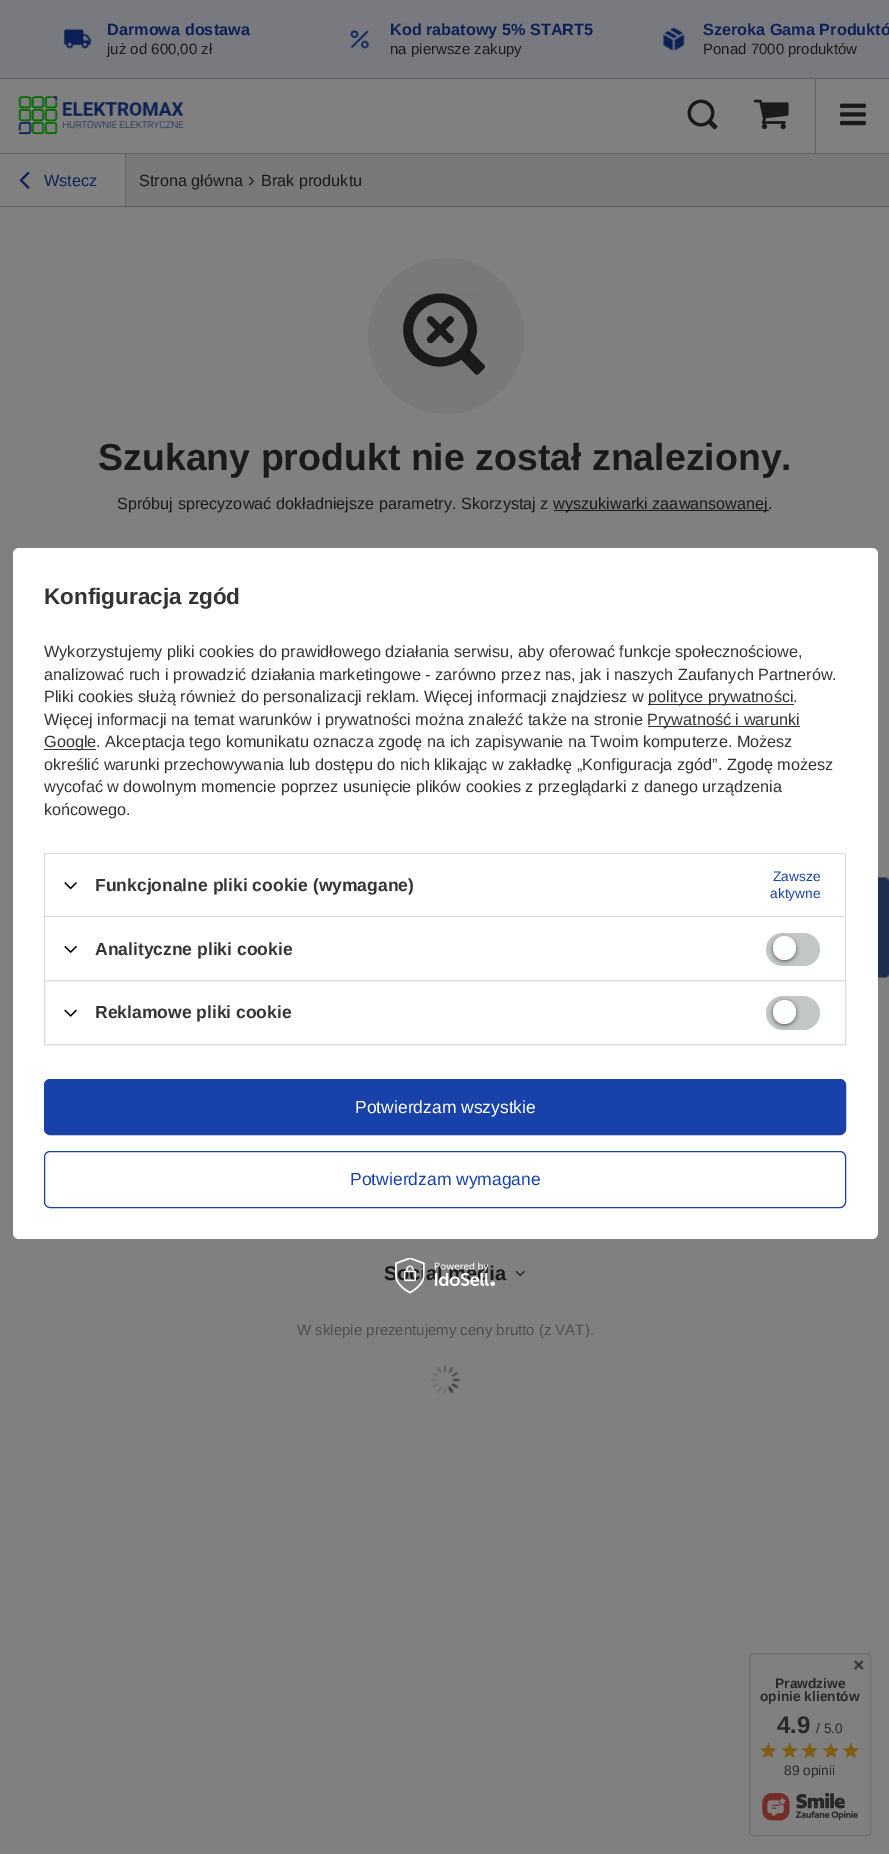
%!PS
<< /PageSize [889 1854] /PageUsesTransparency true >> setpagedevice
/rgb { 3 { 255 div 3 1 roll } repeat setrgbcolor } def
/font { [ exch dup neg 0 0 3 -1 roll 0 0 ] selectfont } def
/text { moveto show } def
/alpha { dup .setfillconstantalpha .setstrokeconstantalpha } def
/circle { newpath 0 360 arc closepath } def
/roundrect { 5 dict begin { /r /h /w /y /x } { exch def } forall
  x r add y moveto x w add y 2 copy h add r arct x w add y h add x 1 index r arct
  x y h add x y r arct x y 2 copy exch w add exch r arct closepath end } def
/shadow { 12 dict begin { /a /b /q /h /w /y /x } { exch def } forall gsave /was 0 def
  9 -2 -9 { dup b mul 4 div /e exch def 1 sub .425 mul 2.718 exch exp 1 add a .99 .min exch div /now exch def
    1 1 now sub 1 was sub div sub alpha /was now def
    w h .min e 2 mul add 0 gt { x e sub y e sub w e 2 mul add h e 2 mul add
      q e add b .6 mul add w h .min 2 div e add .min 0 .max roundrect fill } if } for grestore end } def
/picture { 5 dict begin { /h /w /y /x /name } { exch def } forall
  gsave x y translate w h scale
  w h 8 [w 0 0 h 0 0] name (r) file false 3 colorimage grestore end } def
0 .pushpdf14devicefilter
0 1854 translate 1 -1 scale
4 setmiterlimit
128 128 128 rgb
0 0 889 1854 rectfill
98 100 100 rgb
0 153 889 1 rectfill
120 122 128 rgb
0 0 889 78 rectfill
(img_01.rgb) 63 28 29 21 picture
(img_02.rgb) 350 29 20 20 picture
(img_03.rgb) 663 27 22 24 picture
98 100 100 rgb
815 78 1 75 rectfill
0 78 889 1 rectfill
(img_04.rgb) 18 96 166 38 picture
(img_05.rgb) 687 99 31 31 picture
(img_06.rgb) 753 99 36 31 picture
(img_07.rgb) 840 103 26 23 picture
(img_08.rgb) 19 171 11 18 picture
121 121 121 rgb
126 154 763 54 rectfill
98 100 100 rgb
125 154 1 54 rectfill
(img_09.rgb) 248 176 7 10 picture
0 206 889 1 rectfill
121 121 121 rgb
446 336 78 circle fill
(img_10.rgb) 403 293 82 82 picture
26 26 26 rgb
554 510 215 1 rectfill
255 255 255 rgb
13 548 865 691 6 roundrect fill
51 51 51 rgb
648 704 146 1 rectfill
648 726 152 1 rectfill
44 749 52 1 rectfill
219 219 219 rgb
44 853 802 1 rectfill
845 853 1 63 rectfill
44 853 1 63 rectfill
(img_11.rgb) 64 882 13 8 picture
44 916 802 1 rectfill
845 916 1 64 rectfill
44 916 1 64 rectfill
(img_12.rgb) 64 945 13 8 picture
196 199 200 rgb
766 933 54 33 16.5 roundrect fill
0 0 0 rgb
773 938 23 23 11.5 2 0.56 shadow
255 255 255 rgb
773 936 23 24 11.5 roundrect fill
219 219 219 rgb
44.5 980.5 801 64 rectstroke
(img_13.rgb) 64 1009 13 8 picture
196 199 200 rgb
766 996 54 34 17 roundrect fill
0 0 0 rgb
773 1001 23 24 11.5 2 0.56 shadow
255 255 255 rgb
773 1000 23 24 11.5 roundrect fill
25 65 170 rgb
44.5 1079.5 801 55 5.5 roundrect gsave fill grestore
stroke
44.5 1151.5 801 56 5.5 roundrect stroke
(img_15.rgb) 878 877 11 101 picture
(img_16.rgb) 515 1270 10 7 picture
(img_17.rgb) 430 1365 30 30 picture
111 111 111 rgb
749.5 1653.5 121 182 3.5 roundrect stroke
(img_18.rgb) 853 1659 11 11 picture
(img_19.rgb) 760 1742 17 16 picture
(img_20.rgb) 781 1742 17 16 picture
(img_20.rgb) 801 1742 17 16 picture
(img_21.rgb) 823 1742 16 16 picture
(img_21.rgb) 843 1742 16 16 picture
(img_22.rgb) 762 1792 96 29 picture
/LiberationSans-Bold 16.25 font
13 33 85 rgb
(Darmowa dostawa) 107 35 text
/LiberationSans-Regular 15 font
26 26 26 rgb
(już od 600,00 zł) 107 54 text
/LiberationSans-Bold 16.25 font
13 33 85 rgb
(Kod rabatowy 5% START5) 390 35 text
/LiberationSans-Regular 15 font
26 26 26 rgb
(na pierwsze zakupy) 390 54 text
/LiberationSans-Bold 16.25 font
13 33 85 rgb
(Szeroka Gama Produktó) 703 35 text
/LiberationSans-Regular 15 font
26 26 26 rgb
(Ponad 7000 produktów) 703 54 text
/LiberationSans-Regular 16.25 font
13 33 85 rgb
(Wstecz) 44 186 text
26 26 26 rgb
(Strona główna) 139 186 text
(Brak produktu) 261 186 text
/LiberationSans-Bold 37.5 font
(Szukany produkt nie został znaleziony.) 98 470 text
/LiberationSans-Regular 16.25 font
(Spróbuj sprecyzować dokładniejsze parametry. Skorzystaj z) 117 509 text
(wyszukiwarki zaawansowanej.) 553 509 text
/LiberationSans-Bold 22.5 font
51 51 51 rgb
(Konfiguracja zgód) 44 604 text
/LiberationSans-Regular 16.25 font
(Wykorzystujemy pliki cookies do prawidłowego działania serwisu, aby oferować funkcje społecznościowe,) 44 657 text
(analizować ruch i prowadzić działania marketingowe - zarówno przez nas, jak i naszych Zaufanych Partnerów.) 44 680 text
(Pliki cookies służą również do personalizacji reklam. Więcej informacji znajdziesz w) 44 702 text
(polityce prywatności.) 648 702 text
(Więcej informacji na temat warunków i prywatności można znaleźć także na stronie) 44 725 text
(Prywatność i warunki) 647 725 text
(Google. Akceptacja tego komunikatu oznacza zgodę na ich zapisywanie na Twoim komputerze. Możesz) 44 747 text
(określić warunki przechowywania lub dostępu do nich klikając w zakładkę „Konfiguracja zgód”. Zgodę możesz) 44 770 text
(wycofać w dowolnym momencie poprzez usunięcie plików cookies z przeglądarki z danego urządzenia) 44 792 text
(końcowego.) 44 815 text
/LiberationSans-Bold 17.5 font
(Funkcjonalne pliki cookie \(wymagane\)) 95 891 text
/LiberationSans-Regular 13.75 font
25 65 170 rgb
(Zawsze) 773 881 text
(aktywne) 770 898 text
/LiberationSans-Bold 17.5 font
51 51 51 rgb
(Analityczne pliki cookie) 95 955 text
(Reklamowe pliki cookie) 95 1018 text
/LiberationSans-Regular 17.5 font
255 255 255 rgb
(Potwierdzam wszystkie) 355 1113 text
25 65 170 rgb
(Potwierdzam wymagane) 350 1185 text
/LiberationSans-Bold 20 font
26 26 26 rgb
(Social media) 384 1280 text
(img_14.rgb) 395 1258 100 36 picture
/LiberationSans-Regular 15 font
77 77 77 rgb
(W sklepie prezentujemy ceny brutto \(z VAT\).) 297 1335 text
/LiberationSans-Bold 13.75 font
40 40 40 rgb
(Prawdziwe) 775 1688 text
(opinie klientów) 760 1701 text
/LiberationSans-Bold 24 font
(4.9) 777 1733 text
/LiberationSans-Regular 13.75 font
(/ 5.0) 816 1733 text
(89 opinii) 784 1775 text
.poppdf14devicefilter showpage
